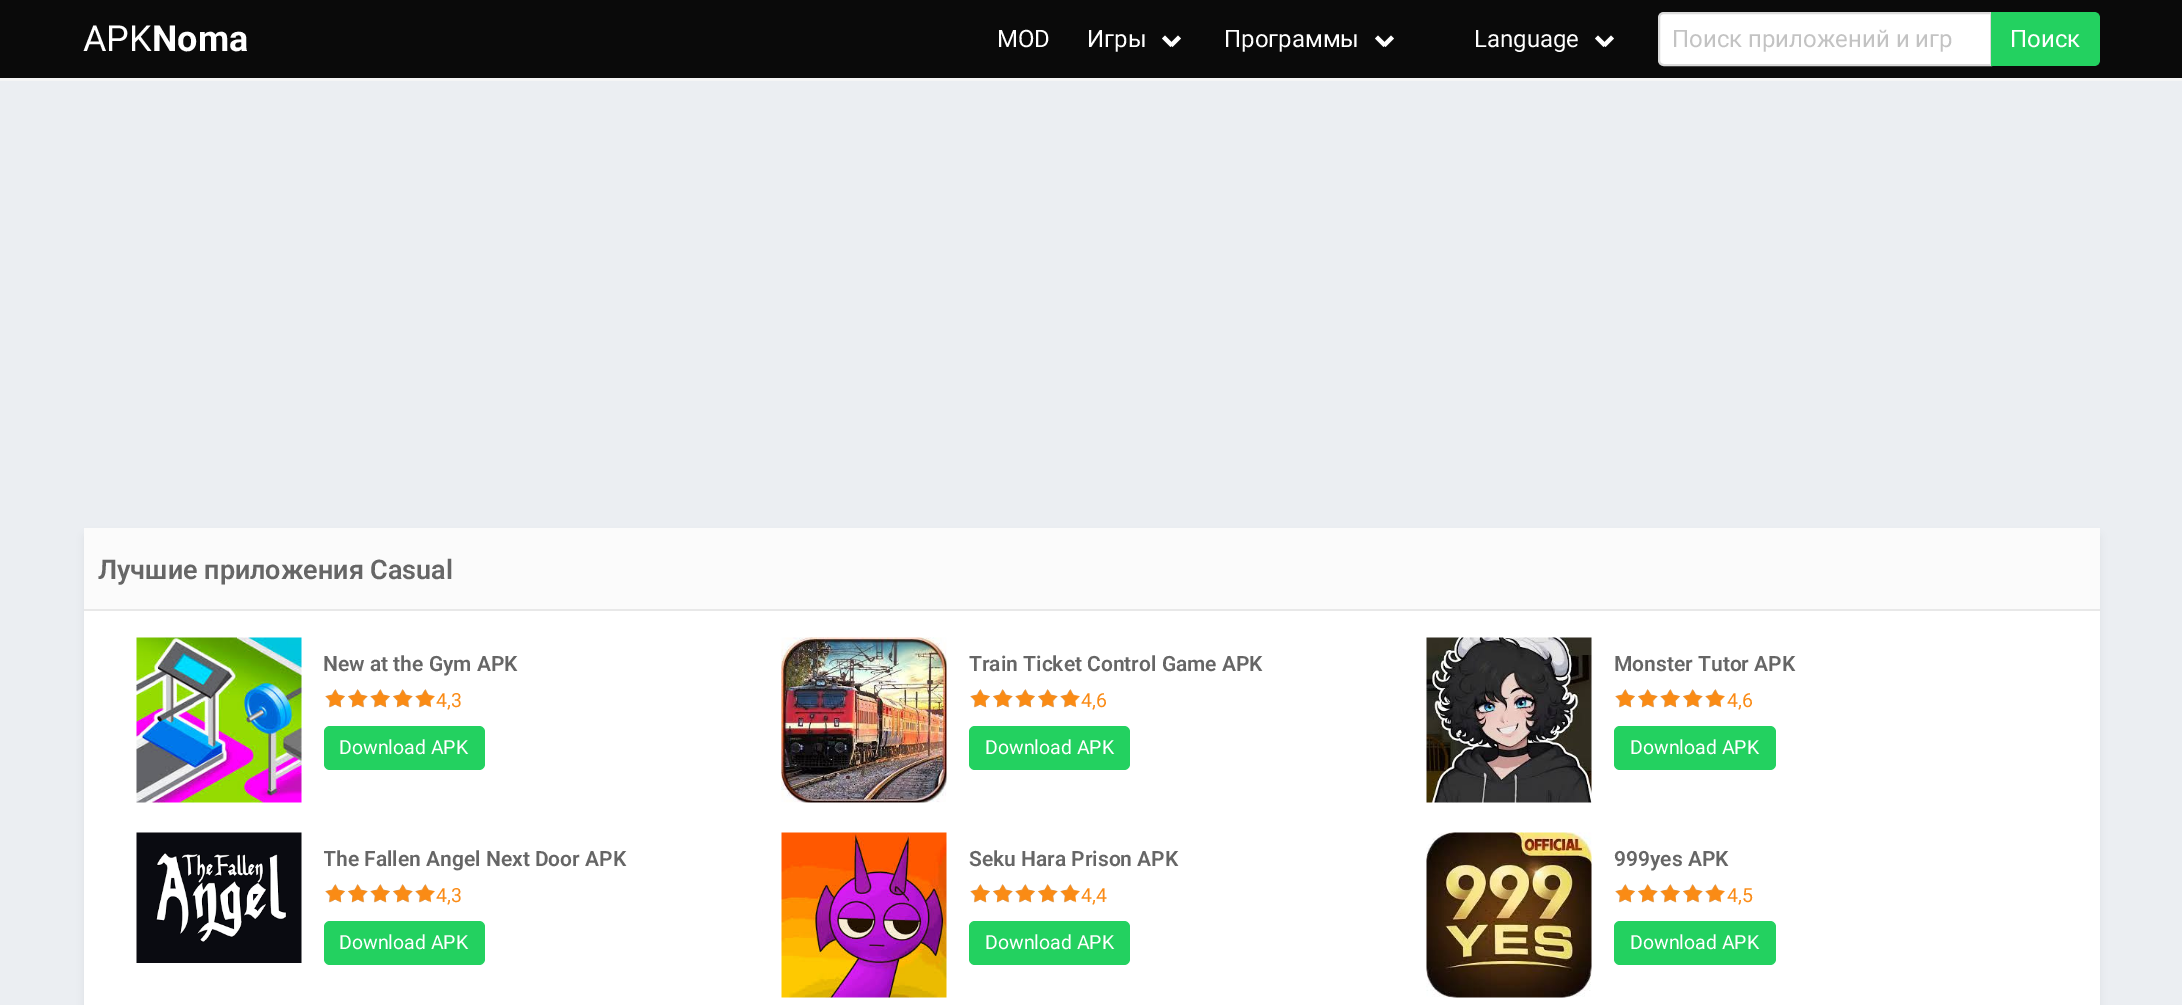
%!PS
<< /PageSize [2182 1005] /PageUsesTransparency true >> setpagedevice
/rgb { 3 { 255 div 3 1 roll } repeat setrgbcolor } def
/font { [ exch dup neg 0 0 3 -1 roll 0 0 ] selectfont } def
/text { moveto show } def
/alpha { dup .setfillconstantalpha .setstrokeconstantalpha } def
/roundrect { 5 dict begin { /r /h /w /y /x } { exch def } forall
  x r add y moveto x w add y 2 copy h add r arct x w add y h add x 1 index r arct
  x y h add x y r arct x y 2 copy exch w add exch r arct closepath end } def
/shadow { 12 dict begin { /a /b /q /h /w /y /x } { exch def } forall gsave /was 0 def
  9 -2 -9 { dup b mul 4 div /e exch def 1 sub .425 mul 2.718 exch exp 1 add a .99 .min exch div /now exch def
    1 1 now sub 1 was sub div sub alpha /was now def
    w h .min e 2 mul add 0 gt { x e sub y e sub w e 2 mul add h e 2 mul add
      q e add b .6 mul add w h .min 2 div e add .min 0 .max roundrect fill } if } for grestore end } def
/picture { 5 dict begin { /h /w /y /x /name } { exch def } forall
  gsave x y translate w h scale
  w h 8 [w 0 0 h 0 0] name (r) file false 3 colorimage grestore end } def
0 .pushpdf14devicefilter
0 1005 translate 1 -1 scale
4 setmiterlimit
235 238 242 rgb
0 0 2182 1005 rectfill
245 245 245 rgb
0 78 moveto 0 3 rlineto 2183 0 rlineto 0 -78 rlineto -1 0 rlineto 0 75 rlineto closepath fill
10 10 10 rgb
0 0 2182 78 rectfill
255 255 255 rgb
1169.5 44 moveto 8.5 -8.5 rlineto 3 3 rlineto -8.5 8.5 rlineto closepath fill
1162 38.5 moveto 3 -3 rlineto 8.5 8.5 rlineto -3 3 rlineto closepath fill
1382.5 44 moveto 8.5 -8.5 rlineto 3 3 rlineto -8.5 8.5 rlineto closepath fill
1375 38.5 moveto 3 -3 rlineto 8.5 8.5 rlineto -3 3 rlineto closepath fill
1602.5 44 moveto 8.5 -8.5 rlineto 3 3 rlineto -8.5 8.5 rlineto closepath fill
1595 38.5 moveto 3 -3 rlineto 8.5 8.5 rlineto -3 3 rlineto closepath fill
1664 13 moveto 327 0 rlineto 0 52 rlineto -327 0 rlineto -3 0 -5 -2 -5 -5 rcurveto 0 -42 rlineto 0 -3 2 -5 5 -5 rcurveto closepath gsave fill grestore
219 219 219 rgb
2 setlinewidth
stroke
35 209 96 rgb
1991 12 moveto 103 0 rlineto 3.5 0 6 2.5 6 6 rcurveto 0 42 rlineto 0 3.5 -2.5 6 -6 6 rcurveto -103 0 rlineto closepath fill
0 0 0 rgb
84 534 2016 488 3 4.5 0.06 shadow
255 255 255 rgb
84 611 2016 394 rectfill
251 251 251 rgb
84 528 2016 81 rectfill
232 232 232 rgb
84 609 2016 2 rectfill
(img_01.rgb) 136 637 166 166 picture
(img_02.rgb) 325 689 104 19 picture
(img_03.rgb) 325 689 110 19 picture
35 209 96 rgb
324 726 161 44 6 roundrect fill
(img_04.rgb) 781 637 166 166 picture
(img_05.rgb) 970 689 104 19 picture
(img_06.rgb) 970 689 110 19 picture
969 726 161 44 6 roundrect fill
(img_07.rgb) 1426 637 166 166 picture
(img_08.rgb) 1615 689 104 19 picture
(img_09.rgb) 1615 689 110 19 picture
1614 726 162 44 6 roundrect fill
(img_10.rgb) 136 832 166 131 picture
(img_11.rgb) 325 884 104 19 picture
(img_12.rgb) 325 884 110 19 picture
324 921 161 44 6 roundrect fill
(img_13.rgb) 781 832 166 166 picture
(img_14.rgb) 970 884 104 19 picture
(img_15.rgb) 970 884 110 19 picture
969 921 161 44 6 roundrect fill
(img_16.rgb) 1426 832 166 166 picture
(img_08.rgb) 1615 884 104 19 picture
(img_17.rgb) 1615 884 110 19 picture
1614 921 162 44 6 roundrect fill
/Roboto-Regular 36 font
255 255 255 rgb
(APK) 83 51 text
/Roboto-Bold 36 font
(Noma) 152 51 text
/Roboto-Regular 24 font
(MOD) 997 47 text
(Игры) 1087 47 text
(Программы) 1224 47 text
(Language) 1474 47 text
195 195 195 rgb
(Поиск приложений и игр) 1672 47 text
255 255 255 rgb
(Поиск) 2010 47 text
/Roboto-SemiBold 27 font
102 102 102 rgb
(Лучшие приложения Casual) 98 579 text
/Roboto-SemiBold 21 font
(New at the Gym APK) 323 671 text
/Roboto-Regular 19.5 font
250 139 22 rgb
(4,3) 436 707 text
255 255 255 rgb
(Download APK) 339 754 text
/Roboto-SemiBold 21 font
102 102 102 rgb
(Train Ticket Control Game APK) 969 671 text
/Roboto-Regular 19.5 font
250 139 22 rgb
(4,6) 1081 707 text
255 255 255 rgb
(Download APK) 985 754 text
/Roboto-SemiBold 21 font
102 102 102 rgb
(Monster Tutor APK) 1614 671 text
/Roboto-Regular 19.5 font
250 139 22 rgb
(4,6) 1727 707 text
255 255 255 rgb
(Download APK) 1630 754 text
gsave
324 840 435 36 rectclip
/Roboto-SemiBold 21 font
102 102 102 rgb
(The Fallen Angel Next Door APK) 323 866 text
grestore
250 139 22 rgb
(4,3) 436 902 text
255 255 255 rgb
(Download APK) 339 949 text
/Roboto-SemiBold 21 font
102 102 102 rgb
(Seku Hara Prison APK) 969 866 text
/Roboto-Regular 19.5 font
250 139 22 rgb
(4,4) 1081 902 text
255 255 255 rgb
(Download APK) 985 949 text
/Roboto-SemiBold 21 font
102 102 102 rgb
(999yes APK) 1614 866 text
/Roboto-Regular 19.5 font
250 139 22 rgb
(4,5) 1727 902 text
255 255 255 rgb
(Download APK) 1630 949 text
.poppdf14devicefilter showpage
